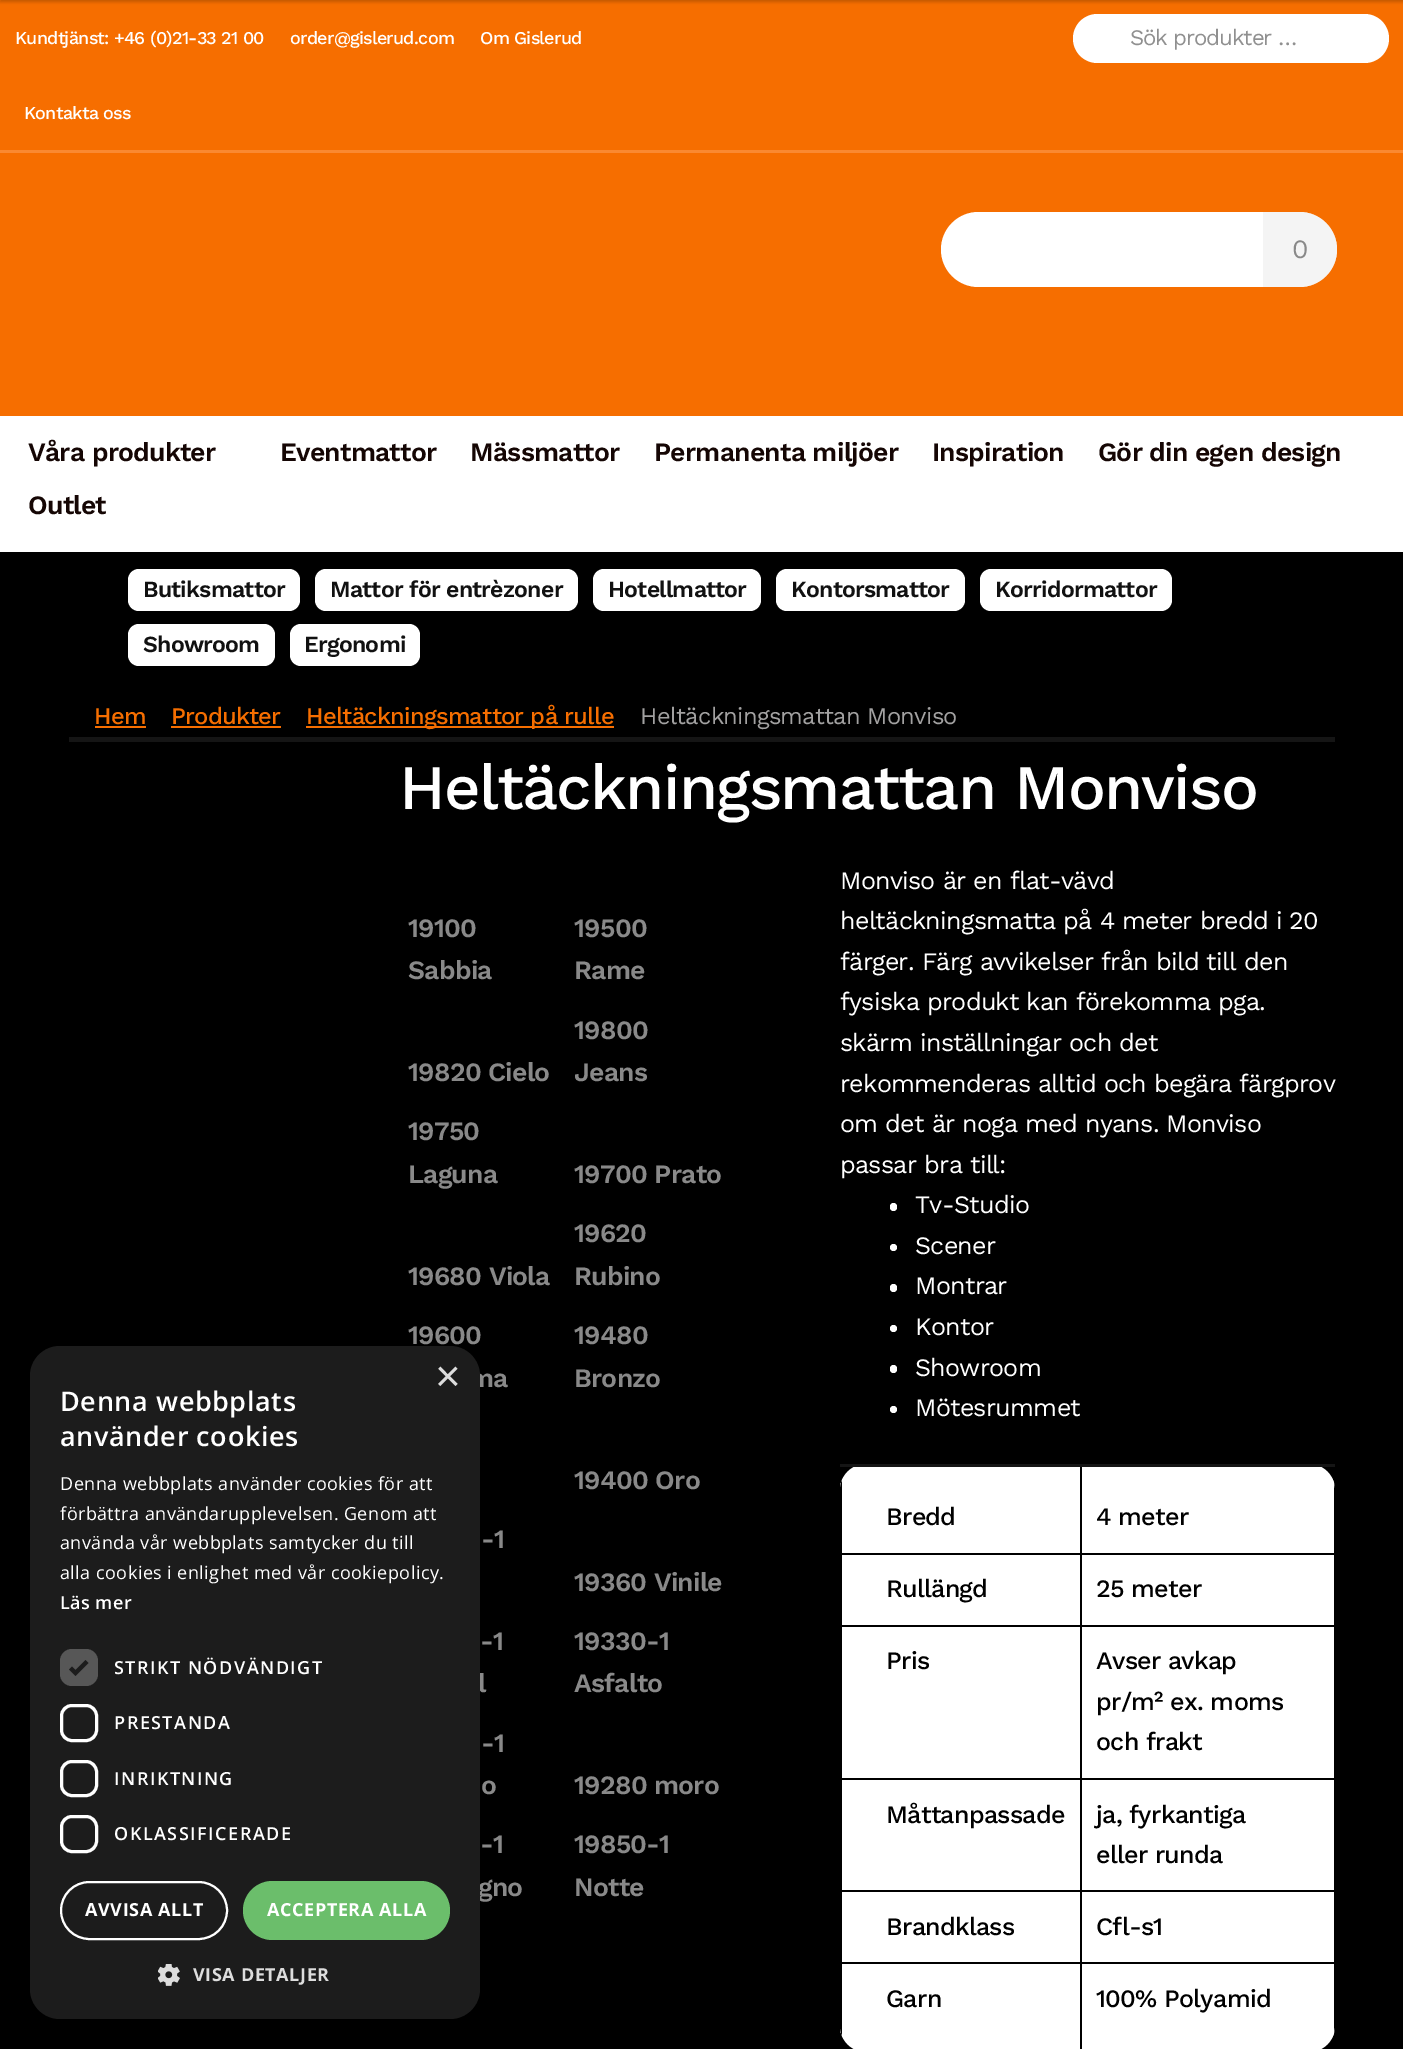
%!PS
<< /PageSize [1403 2049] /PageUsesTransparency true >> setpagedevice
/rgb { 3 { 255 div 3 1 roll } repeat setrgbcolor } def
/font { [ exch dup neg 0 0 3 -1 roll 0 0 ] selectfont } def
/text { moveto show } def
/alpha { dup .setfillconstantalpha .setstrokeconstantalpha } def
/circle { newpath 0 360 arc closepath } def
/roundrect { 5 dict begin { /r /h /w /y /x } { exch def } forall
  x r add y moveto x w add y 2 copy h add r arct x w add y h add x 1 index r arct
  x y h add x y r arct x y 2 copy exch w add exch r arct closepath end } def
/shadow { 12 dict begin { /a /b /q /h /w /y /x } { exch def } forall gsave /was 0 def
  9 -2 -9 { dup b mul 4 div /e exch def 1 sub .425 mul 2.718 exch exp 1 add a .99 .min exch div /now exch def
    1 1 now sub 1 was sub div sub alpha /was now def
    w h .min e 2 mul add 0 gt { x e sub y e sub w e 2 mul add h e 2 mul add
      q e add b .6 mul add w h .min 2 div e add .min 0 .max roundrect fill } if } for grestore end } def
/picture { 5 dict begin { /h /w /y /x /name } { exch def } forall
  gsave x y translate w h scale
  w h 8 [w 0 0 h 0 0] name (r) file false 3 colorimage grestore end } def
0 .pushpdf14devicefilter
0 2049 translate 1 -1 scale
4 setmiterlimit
0 0 0 rgb
0 0 1403 2049 rectfill
246 110 0 rgb
0 0 1403 416 rectfill
0 0 0 rgb
0 -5 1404 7 0 1.5 0.2 shadow
250 137 49 rgb
0 150 1403 3 rectfill
255 255 255 rgb
1073 14 316 49 24.5 roundrect fill
941 212 396 75 37.5 roundrect fill
0.5 alpha
234 234 234 rgb
1263 212 moveto 36.5 0 rlineto 20.5 0 37.5 17 37.5 37.5 rcurveto 0 20.5 -17 37.5 -37.5 37.5 rcurveto -36.5 0 rlineto closepath fill
1 alpha
255 255 255 rgb
0 416 1403 136 rectfill
128 569 172 42 11 roundrect fill
315 569 263 42 11 roundrect fill
593 569 168 42 11 roundrect fill
776 569 189 42 11 roundrect fill
980 569 192 42 11 roundrect fill
128 624 147 42 11 roundrect fill
290 624 130 42 11 roundrect fill
21 21 21 rgb
69 737 1266 5 rectfill
246 110 0 rgb
95 726 51 2 rectfill
171 726 110 2 rectfill
306 726 308 2 rectfill
255 255 255 rgb
890 1203 7 8 3.5 roundrect fill
893.5 1247.5 3.5 circle fill
890 1284 7 8 3.5 roundrect fill
893.5 1328.5 3.5 circle fill
890 1365 7 8 3.5 roundrect fill
893.5 1409.5 3.5 circle fill
840 1464 495 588 26 roundrect fill
21 21 21 rgb
840 1464 495 3 rectfill
255 255 255 rgb
865 1467 moveto -14 0 -25 10 -25 22 rcurveto 0 64 rlineto 240 0 rlineto 0 -86 rlineto closepath fill
0 0 0 rgb
1080 1962 255 2 rectfill
1334 1962 moveto 1 0 rlineto 0 65 rlineto -1 6 rlineto closepath fill
1334 1553 1 411 rectfill
1335 1554 moveto -1 0 rlineto 0 -71 rlineto 1 6 rlineto closepath fill
255 255 255 rgb
1080 1964 moveto 254 0 rlineto 0 69 rlineto -3 9 -13 16 -24 16 rcurveto -230 0 rlineto closepath fill
0 0 0 rgb
1080 1962 2 87 rectfill
840 1962 242 2 rectfill
1080 1890 2 74 rectfill
1080 1890 255 2 rectfill
1080 1778 2 114 rectfill
1080 1778 255 2 rectfill
1080 1625 2 154 rectfill
1080 1625 255 2 rectfill
1080 1553 2 73 rectfill
1080 1553 255 2 rectfill
255 255 255 rgb
1334 1483 moveto 0 70 rlineto -254 0 rlineto 0 -86 rlineto 230 0 rlineto 11 0 21 7 24 16 rcurveto closepath fill
0 0 0 rgb
1080 1467 2 87 rectfill
255 255 255 rgb
840 1964 moveto 0 63 rlineto 0 12 11 22 25 22 rcurveto 215 0 rlineto 0 -85 rlineto closepath fill
0 0 0 rgb
840 1962 moveto 0 65 rlineto 0 3 1 6 2 9 rcurveto 0 -74 rlineto closepath fill
840 1890 2 74 rectfill
840 1890 242 2 rectfill
840 1778 2 114 rectfill
840 1778 242 2 rectfill
840 1625 2 154 rectfill
840 1625 242 2 rectfill
840 1553 2 73 rectfill
840 1553 242 2 rectfill
840 1489 moveto 0 65 rlineto 2 0 rlineto 0 -74 rlineto -1 3 -2 6 -2 9 rcurveto closepath fill
32 1349 450 673 30 6 0.35 shadow
/WorkSans-Medium 18 font
255 255 255 rgb
15 44 moveto -0.75 0 (Kundtjänst: +46 \(0\)21-33 21 00) ashow
290 44 moveto -0.75 0 (order@gislerud.com) ashow
480 44 moveto -0.75 0 (Om Gislerud) ashow
24 119 moveto -0.75 0 (Kontakta oss) ashow
/WorkSans-Regular 22.25 font
144 144 144 rgb
1130 45 moveto -1.1 0 (Sök produkter …) ashow
/WorkSans-Regular 26.5 font
137 137 137 rgb
1292 258 moveto -0.75 0 (0) ashow
/WorkSans-SemiBold 26.5 font
21 6 4 rgb
28 461 moveto -0.75 0 (Våra produkter) ashow
280 461 moveto -0.75 0 (Eventmattor) ashow
470 461 moveto -0.75 0 (Mässmattor) ashow
654 461 moveto -0.75 0 (Permanenta miljöer) ashow
932 461 moveto -0.75 0 (Inspiration) ashow
1098 461 moveto -0.75 0 (Gör din egen design) ashow
28 514 moveto -0.75 0 (Outlet) ashow
/WorkSans-SemiBold 23.1 font
17 17 17 rgb
143 597 moveto -0.75 0 (Butiksmattor) ashow
330 597 moveto -0.75 0 (Mattor för entrèzoner) ashow
608 597 moveto -0.75 0 (Hotellmattor) ashow
791 597 moveto -0.75 0 (Kontorsmattor) ashow
995 597 moveto -0.75 0 (Korridormattor) ashow
143 652 moveto -0.75 0 (Showroom) ashow
304 652 moveto -0.75 0 (Ergonomi) ashow
/WorkSans-Medium 23.75 font
246 110 0 rgb
94 724 moveto -0.75 0 (Hem) ashow
171 724 moveto -0.75 0 (Produkter) ashow
306 724 moveto -0.75 0 (Heltäckningsmattor på rulle) ashow
/WorkSans-Regular 23.75 font
162 161 161 rgb
640 724 moveto -0.75 0 (Heltäckningsmattan Monviso) ashow
/WorkSans-Medium 63.4 font
255 255 255 rgb
399 809 moveto -1.75 0 (Heltäckningsmattan Monviso) ashow
/WorkSans-SemiBold 26.5 font
137 137 137 rgb
408 937 moveto -0.75 0 (19100) ashow
408 979 moveto -0.75 0 (Sabbia) ashow
574 937 moveto -0.75 0 (19500) ashow
574 979 moveto -0.75 0 (Rame) ashow
408 1081 moveto -0.75 0 (19820 Cielo) ashow
574 1039 moveto -0.75 0 (19800) ashow
574 1081 moveto -0.75 0 (Jeans) ashow
408 1140 moveto -0.75 0 (19750) ashow
408 1183 moveto -0.75 0 (Laguna) ashow
574 1183 moveto -0.75 0 (19700 Prato) ashow
408 1285 moveto -0.75 0 (19680 Viola) ashow
574 1242 moveto -0.75 0 (19620) ashow
574 1285 moveto -0.75 0 (Rubino) ashow
408 1344 moveto -0.75 0 (19600) ashow
469 1387 moveto -0.75 0 (ma) ashow
574 1344 moveto -0.75 0 (19480) ashow
574 1387 moveto -0.75 0 (Bronzo) ashow
574 1489 moveto -0.75 0 (19400 Oro) ashow
481 1548 moveto -0.75 0 (-1) ashow
574 1591 moveto -0.75 0 (19360 Vinile) ashow
480 1650 moveto -0.75 0 (-1) ashow
478 1692 moveto -0.75 0 (l) ashow
574 1650 moveto -0.75 0 (19330-1) ashow
574 1692 moveto -0.75 0 (Asfalto) ashow
481 1752 moveto -0.75 0 (-1) ashow
481 1794 moveto -0.75 0 (o) ashow
574 1794 moveto -0.75 0 (19280 moro) ashow
480 1853 moveto -0.75 0 (-1) ashow
478 1896 moveto -0.75 0 (gno) ashow
574 1853 moveto -0.75 0 (19850-1) ashow
574 1896 moveto -0.75 0 (Notte) ashow
/WorkSans-Regular 25.1 font
255 255 255 rgb
840 889 moveto -0.75 0 (Monviso är en flat-vävd) ashow
840 929 moveto -0.75 0 (heltäckningsmatta på 4 meter bredd i 20) ashow
840 970 moveto -0.75 0 (färger. Färg avvikelser från bild till den) ashow
840 1010 moveto -0.75 0 (fysiska produkt kan förekomma pga.) ashow
840 1051 moveto -0.75 0 (skärm inställningar och det) ashow
840 1092 moveto -0.75 0 (rekommenderas alltid och begära färgprov) ashow
840 1132 moveto -0.75 0 (om det är noga med nyans. Monviso) ashow
840 1173 moveto -0.75 0 (passar bra till:) ashow
915 1213 moveto -0.75 0 (Tv-Studio) ashow
915 1254 moveto -0.75 0 (Scener) ashow
915 1294 moveto -0.75 0 (Montrar) ashow
915 1335 moveto -0.75 0 (Kontor) ashow
915 1376 moveto -0.75 0 (Showroom) ashow
915 1416 moveto -0.75 0 (Mötesrummet) ashow
/WorkSans-Medium 25.1 font
0 0 0 rgb
886 1525 moveto -0.75 0 (Bredd) ashow
1096 1525 moveto -0.75 0 (4 meter) ashow
886 1597 moveto -0.75 0 (Rullängd) ashow
1096 1597 moveto -0.75 0 (25 meter) ashow
886 1669 moveto -0.75 0 (Pris) ashow
1096 1669 moveto -0.75 0 (Avser avkap) ashow
1096 1710 moveto -0.75 0 (pr/m² ex. moms) ashow
1096 1750 moveto -0.75 0 (och frakt) ashow
886 1823 moveto -0.75 0 (Måttanpassade) ashow
1096 1823 moveto -0.75 0 (ja, fyrkantiga) ashow
1096 1863 moveto -0.75 0 (eller runda) ashow
886 1935 moveto -0.75 0 (Brandklass) ashow
1096 1935 moveto -0.75 0 (Cfl-s1) ashow
886 2007 moveto -0.75 0 (Garn) ashow
1096 2007 moveto -0.75 0 (100% Polyamid) ashow
28 28 28 rgb
30 1346 450 673 30 roundrect fill
/LiberationSans-Regular 44 font
221 221 221 rgb
(×) 435 1391 text
/OpenSans-SemiBold 27 font
255 255 255 rgb
60 1411 moveto 0.6 0 (Denna webbplats) ashow
60 1446 moveto 0.6 0 (använder cookies) ashow
/OpenSans-Regular 18 font
60 1490 moveto 0.45 0 (Denna webbplats använder cookies för att) ashow
60 1520 moveto 0.45 0 (förbättra användarupplevelsen. Genom att) ashow
60 1549 moveto 0.45 0 (använda vår webbplats samtycker du till) ashow
60 1579 moveto 0.45 0 (alla cookies i enlighet med vår cookiepolicy.) ashow
/OpenSans-SemiBold 18 font
60 1609 moveto 0.45 0 (Läs mer) ashow
87 87 87 rgb
60 1649 38 37 12 roundrect fill
28 28 28 rgb
3.9 setlinewidth
70.5 1668 moveto 5 5 rlineto 11.5 -11.5 rlineto stroke
255 255 255 rgb
114 1674 moveto 1.5 0 (STRIKT NÖDVÄNDIGT) ashow
3 setlinewidth
61.5 1705.5 35 35 10.5 roundrect stroke
114 1729 moveto 1.5 0 (PRESTANDA) ashow
61.5 1761.5 35 34 10.5 roundrect stroke
114 1785 moveto 1.5 0 (INRIKTNING) ashow
61.5 1816.5 35 35 10.5 roundrect stroke
114 1840 moveto 1.5 0 (OKLASSIFICERADE) ashow
2 setlinewidth
61 1882 166 57 28.5 roundrect stroke
/OpenSans-Bold 18 font
85 1916 moveto 0.6 0 (AVVISA ALLT) ashow
107 190 107 rgb
243 1881 207 59 29.5 roundrect fill
255 255 255 rgb
267 1916 moveto 0.6 0 (ACCEPTERA ALLA) ashow
(img_01.rgb) 158 1964 22 22 picture
221 221 221 rgb
193 1981 moveto 0.6 0 (VISA DETALJER) ashow
.poppdf14devicefilter showpage
